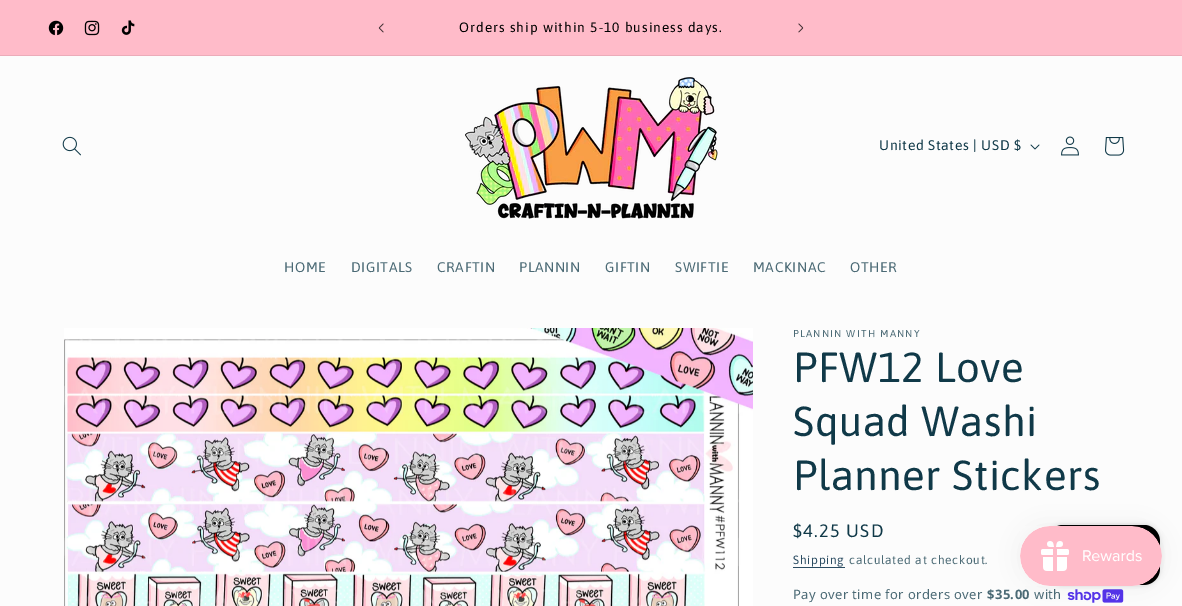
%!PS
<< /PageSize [1182 606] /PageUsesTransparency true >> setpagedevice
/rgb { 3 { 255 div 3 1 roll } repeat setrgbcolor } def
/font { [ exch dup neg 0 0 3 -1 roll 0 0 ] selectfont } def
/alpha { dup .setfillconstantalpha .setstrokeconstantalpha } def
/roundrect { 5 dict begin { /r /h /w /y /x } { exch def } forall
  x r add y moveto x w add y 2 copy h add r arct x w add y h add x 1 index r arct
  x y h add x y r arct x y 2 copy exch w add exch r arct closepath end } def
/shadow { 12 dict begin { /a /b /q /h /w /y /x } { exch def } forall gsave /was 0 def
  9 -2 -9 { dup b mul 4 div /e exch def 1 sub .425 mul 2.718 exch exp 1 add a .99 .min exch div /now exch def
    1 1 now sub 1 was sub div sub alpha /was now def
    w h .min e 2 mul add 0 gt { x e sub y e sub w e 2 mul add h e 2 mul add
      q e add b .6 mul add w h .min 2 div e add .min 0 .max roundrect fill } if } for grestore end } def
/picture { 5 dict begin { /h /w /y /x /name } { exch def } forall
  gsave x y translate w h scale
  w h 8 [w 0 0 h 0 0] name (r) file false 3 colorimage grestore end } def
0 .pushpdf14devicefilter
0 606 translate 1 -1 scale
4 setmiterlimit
252 252 252 rgb
0 0 1182 606 rectfill
255 187 201 rgb
0 0 1182 55 rectfill
235 172 185 rgb
0 55 1182 1 rectfill
(img_01.rgb) 48 20 16 16 picture
(img_02.rgb) 84 20 16 16 picture
(img_03.rgb) 121 20 14 15 picture
(img_04.rgb) 378 23 6 10 picture
(img_05.rgb) 798 23 6 10 picture
(img_06.rgb) 62 136 19 20 picture
(img_07.rgb) 465 77 253 142 picture
(img_08.rgb) 1030 144 10 6 picture
(img_09.rgb) 1061 136 18 20 picture
(img_10.rgb) 1105 137 20 19 picture
(img_11.rgb) 64 328 689 278 picture
42 75 97 rgb
793 567 52 1 rectfill
(img_12.rgb) 1067 589 57 14 picture
0 0 0 rgb
1047 525 113 60 16 2.5 0.15 shadow
1047 525 113 60 16 roundrect fill
1020 526 142 60 30 12.5 0.05 shadow
(img_13.rgb) 1020 526 142 60 picture
/Asap-Regular 13.6 font
459 32 moveto 1 0 (Orders ship within 5-10 business days.) ashow
/Asap-Regular 14 font
16 57 72 rgb
879 150 moveto 0.6 0 (United States | USD $) ashow
75 106 117 rgb
284 272 moveto 0.6 0 (HOME) ashow
351 272 moveto 0.6 0 (DIGITALS) ashow
437 272 moveto 0.6 0 (CRAFTIN) ashow
519 272 moveto 0.6 0 (PLANNIN) ashow
605 272 moveto 0.6 0 (GIFTIN) ashow
675 272 moveto 0.6 0 (SWIFTIE) ashow
753 272 moveto 0.6 0 (MACKINAC) ashow
850 272 moveto 0.6 0 (OTHER) ashow
/Asap-Regular 10 font
793 337 moveto 1.25 0 (PLANNIN WITH MANNY) ashow
/Asap-Regular 42 font
16 57 72 rgb
793 382 moveto 0.6 0 (PFW12 Love) ashow
793 436 moveto 0.6 0 (Squad Washi) ashow
793 490 moveto 0.6 0 (Planner Stickers) ashow
/Asap-Regular 18 font
793 537 moveto 1.25 0 ($4.25 USD) ashow
/Asap-Regular 12 font
42 75 97 rgb
793 564 moveto 0.7 0 (Shipping) ashow
75 106 117 rgb
849 564 moveto 0.7 0 (calculated at checkout.) ashow
/NotoSans-Regular 13 font
793 599 moveto 0.4 0 (Pay over time for orders over) ashow
/NotoSans-Bold 13 font
987 599 moveto 0.4 0 ($35.00) ashow
/NotoSans-Regular 13 font
1034 599 moveto 0.4 0 (with) ashow
.poppdf14devicefilter showpage
